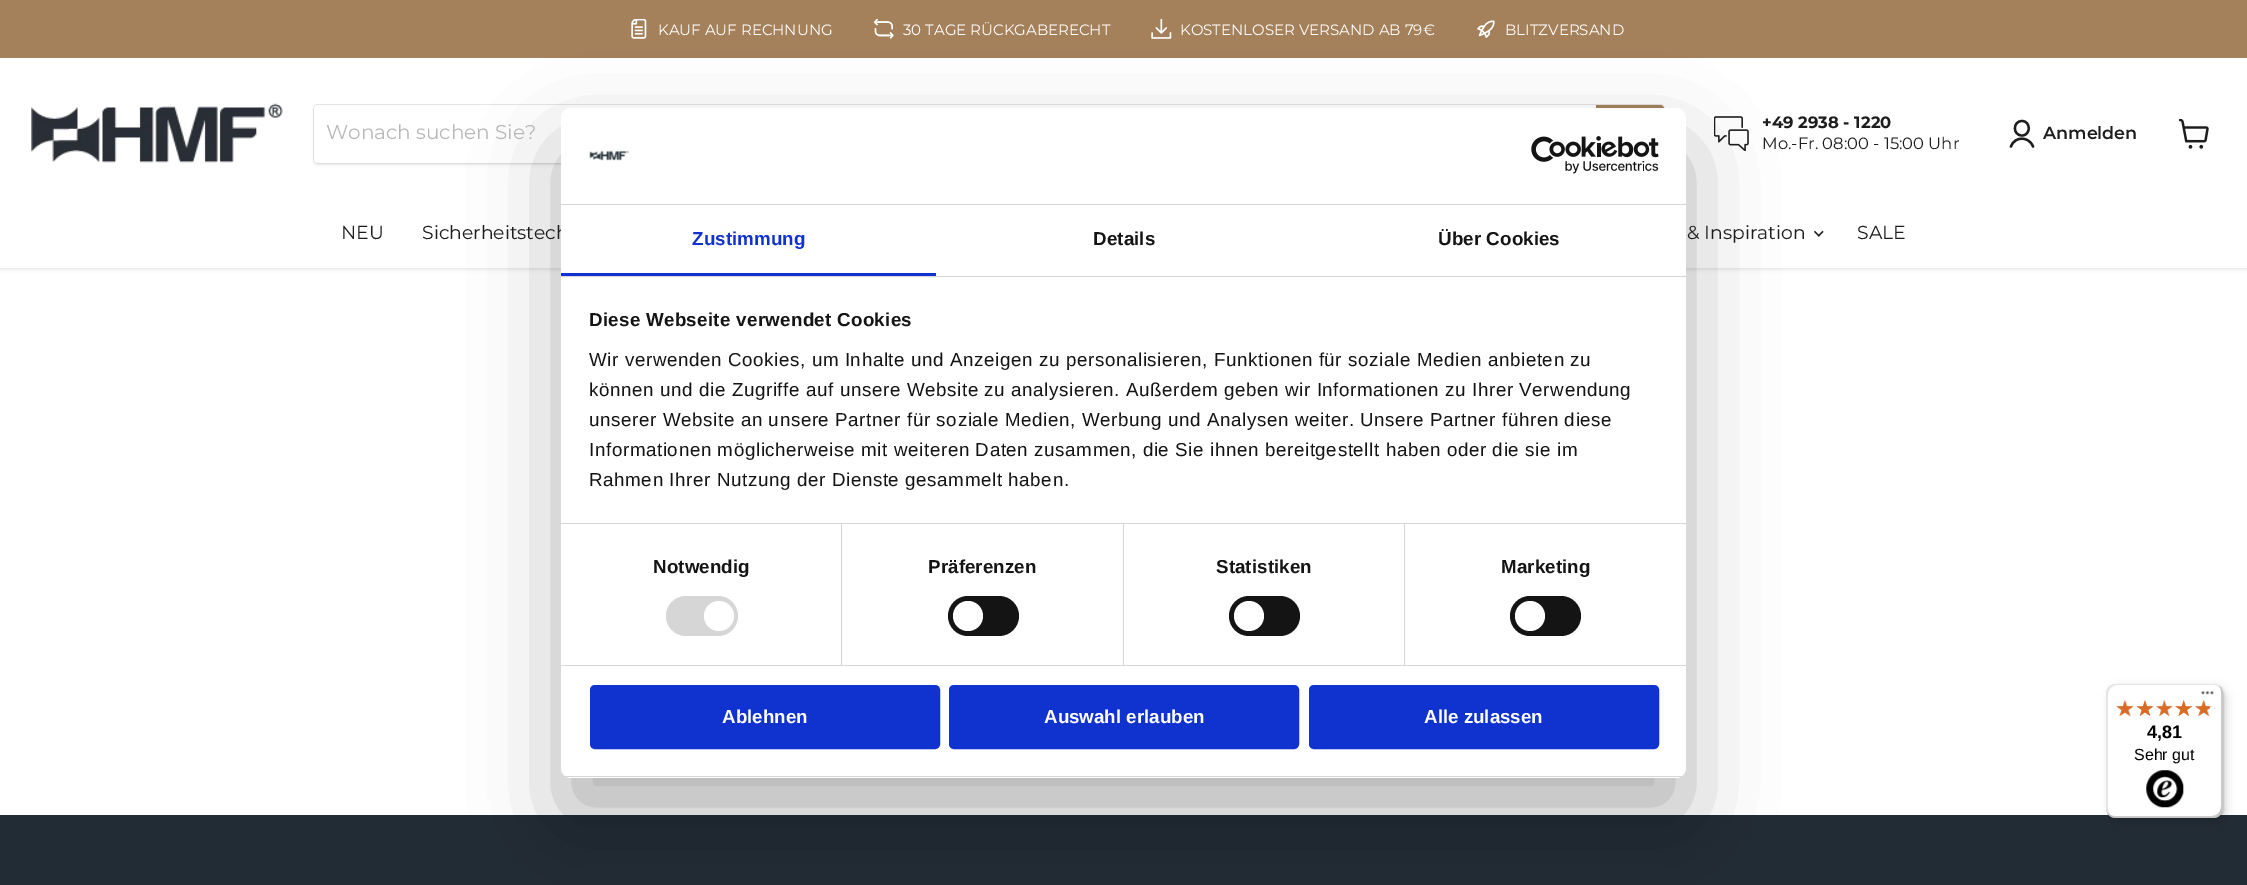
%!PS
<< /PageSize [2247 885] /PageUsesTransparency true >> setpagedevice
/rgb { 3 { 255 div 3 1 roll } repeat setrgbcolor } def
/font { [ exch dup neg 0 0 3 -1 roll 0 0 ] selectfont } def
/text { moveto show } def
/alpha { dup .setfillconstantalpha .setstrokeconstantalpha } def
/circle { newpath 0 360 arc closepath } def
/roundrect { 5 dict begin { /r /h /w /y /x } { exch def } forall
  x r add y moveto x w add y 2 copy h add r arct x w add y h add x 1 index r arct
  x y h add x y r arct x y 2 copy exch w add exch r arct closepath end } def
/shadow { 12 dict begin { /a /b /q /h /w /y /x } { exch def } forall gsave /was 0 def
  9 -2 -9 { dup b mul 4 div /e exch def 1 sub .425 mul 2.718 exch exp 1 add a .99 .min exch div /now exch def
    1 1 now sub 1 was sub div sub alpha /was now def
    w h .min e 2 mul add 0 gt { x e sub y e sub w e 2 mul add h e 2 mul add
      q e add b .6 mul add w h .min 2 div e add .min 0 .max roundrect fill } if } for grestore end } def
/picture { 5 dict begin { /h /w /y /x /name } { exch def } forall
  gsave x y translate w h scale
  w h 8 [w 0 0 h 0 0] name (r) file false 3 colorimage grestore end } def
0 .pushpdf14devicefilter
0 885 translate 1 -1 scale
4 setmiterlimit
255 255 255 rgb
0 0 2247 885 rectfill
164 129 91 rgb
0 0 2247 58 rectfill
(img_01.rgb) 631 19 16 20 picture
(img_02.rgb) 873 19 21 20 picture
(img_03.rgb) 1151 19 21 20 picture
(img_04.rgb) 1477 20 18 18 picture
128 128 128 rgb
0 59 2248 210 0 2.5 0.25 shadow
255 255 255 rgb
0 58 2247 210 rectfill
(img_05.rgb) 31 103 252 60 picture
128 128 128 rgb
313 106 1352 60 5 2 0.11 shadow
0.2 alpha
313.5 104.5 1351 59 4.5 roundrect stroke
1 alpha
255 255 255 rgb
318 105 moveto 1278 0 rlineto 0 58 rlineto -1278 0 rlineto -2 0 -4 -2 -4 -4 rcurveto 0 -50 rlineto 0 -2 2 -4 4 -4 rcurveto closepath fill
164 129 91 rgb
1596.5 105.5 moveto 63.5 0 rlineto 2 0 3.5 1.5 3.5 3.5 rcurveto 0 50 rlineto 0 2 -1.5 3.5 -3.5 3.5 rcurveto -63.5 0 rlineto closepath gsave fill grestore
stroke
(img_06.rgb) 1714 116 35 35 picture
29 29 29 rgb
2.3 setlinewidth
1 setlinecap
1 setlinejoin
2022 135.5 moveto 9 0 9 -14.5 0 -14.5 rcurveto -9.5 0 -9.5 14.5 0 14.5 rcurveto closepath 2033 146.5 moveto -4 -10.5 -18.5 -10.5 -22 0 rcurveto stroke
(img_07.rgb) 2179 119 30 30 picture
(img_08.rgb) 1814 230 10 7 picture
34 44 53 rgb
0 815 2247 70 rectfill
0 0 0 rgb
561 148 1125 670 10 42.5 0.3 shadow
2110 688 116 133 10 5 0.15 shadow
2108 685 116 134 10 1 0.15 shadow
255 255 255 rgb
2106 684 117 134 10 roundrect fill
0.1 alpha
0 0 0 rgb
2118 685 moveto 96 0 rlineto 2 0 5 1 7 3 rcurveto -2 -3 -5 -4 -8 -4 rcurveto -97 0 rlineto -6 0 -10 4 -10 10 rcurveto 0 114 rlineto 0 4 3 8 7 9 rcurveto -3 -1 -5 -5 -5 -8 rcurveto 0 -114 rlineto 0 -6 4 -10 10 -10 rcurveto closepath fill
0.2 alpha
2107 812 moveto 2 4 5 6 9 6 rcurveto 97 0 rlineto 6 0 10 -4 10 -10 rcurveto 0 -114 rlineto 0 -3 -2 -6 -4 -8 rcurveto 1 2 2 4 2 6 rcurveto 0 114 rlineto 0 6 -4 10 -10 10 rcurveto -96 0 rlineto -3 0 -6 -1 -8 -4 rcurveto closepath fill
50 50 50 rgb
2106 807 moveto 0 1 rlineto 0 6 4 10 10 10 rcurveto 97 0 rlineto 6 0 10 -4 10 -10 rcurveto 0 -114 rlineto 0 -3 -1 -6 -3 -8 rcurveto 1 2 2 4 2 7 rcurveto 0 114 rlineto 0 5 -5 10 -10 10 rcurveto -96 0 rlineto -6 0 -10 -5 -10 -10 rcurveto closepath fill
0.3 alpha
255 255 255 rgb
2106 807 moveto 0 1 rlineto 0 6 4 10 10 10 rcurveto 97 0 rlineto 6 0 10 -4 10 -10 rcurveto 0 -114 rlineto 0 -4 -2 -7 -5 -9 rcurveto 2 2 4 5 4 8 rcurveto 0 114 rlineto 0 5 -5 10 -10 10 rcurveto -96 0 rlineto -6 0 -10 -5 -10 -10 rcurveto closepath fill
1 alpha
(img_11.rgb) 2201 691 13 4 picture
(img_12.rgb) 2116 700 18 17 picture
(img_13.rgb) 2136 700 18 16 picture
(img_14.rgb) 2156 700 17 17 picture
(img_15.rgb) 2175 700 17 16 picture
(img_16.rgb) 2195 700 18 17 picture
(img_17.rgb) 2116 700 18 16 picture
(img_18.rgb) 2136 700 18 16 picture
(img_19.rgb) 2156 700 17 16 picture
(img_20.rgb) 2175 700 17 16 picture
(img_21.rgb) 2195 700 15 16 picture
(img_22.rgb) 2146 770 39 38 picture
/Montserrat-Regular 15 font
(KAUF AUF RECHNUNG) 658 35 text
(30 TAGE RÜCKGABERECHT) 903 35 text
(KOSTENLOSER VERSAND AB 79€) 1180 35 text
(BLITZVERSAND) 1505 35 text
/Montserrat-Regular 20 font
184 184 184 rgb
(Wonach suchen Sie?) 326 139 text
/Montserrat-Bold 16.4 font
29 29 29 rgb
(+49 2938 - 1220) 1762 128 text
/Montserrat-Regular 16.4 font
(Mo.-Fr. 08:00 - 15:00 Uhr) 1762 149 text
/Montserrat-SemiBold 17.5 font
(Anmelden) 2043 139 text
/Montserrat-Regular 18.75 font
(NEU) 341 239 text
(Sicherheitstech) 422 239 text
(& Inspiration) 1687 239 text
(SALE) 1857 239 text
255 255 255 rgb
561 108 1125 670 10 roundrect fill
214 214 214 rgb
561 204 1125 1 rectfill
(img_09.rgb) 589 150 40 11 picture
(img_10.rgb) 1531 136 128 38 picture
561 276 1125 1 rectfill
16 50 207 rgb
561 273 375 3 rectfill
/LiberationSans-Bold 18.75 font
692 245 moveto 0.1 0 (Zustimmung) ashow
20 20 20 rgb
1093 245 moveto 0.1 0 (Details) ashow
1438 245 moveto 0.1 0 (Über Cookies) ashow
214 214 214 rgb
561 523 1125 1 rectfill
20 20 20 rgb
589 326 moveto 0.3 0 (Diese Webseite verwendet Cookies) ashow
/LiberationSans-Regular 18.75 font
589 366 moveto 0.62 0 (Wir verwenden Cookies, um Inhalte und Anzeigen zu personalisieren, Funktionen für soziale Medien anbieten zu) ashow
589 396 moveto 0.62 0 (können und die Zugriffe auf unsere Website zu analysieren. Außerdem geben wir Informationen zu Ihrer Verwendung) ashow
589 426 moveto 0.62 0 (unserer Website an unsere Partner für soziale Medien, Werbung und Analysen weiter. Unsere Partner führen diese) ashow
589 456 moveto 0.62 0 (Informationen möglicherweise mit weiteren Daten zusammen, die Sie ihnen bereitgestellt haben oder die sie im) ashow
589 486 moveto 0.62 0 (Rahmen Ihrer Nutzung der Dienste gesammelt haben.) ashow
214 214 214 rgb
561 665 1125 1 rectfill
841 524 1 141 rectfill
/LiberationSans-Bold 18.75 font
20 20 20 rgb
653 573 moveto 0.1 0 (Notwendig) ashow
214 214 214 rgb
666 596 72 40 20 roundrect fill
255 255 255 rgb
719 616 15 circle fill
214 214 214 rgb
1123 524 1 141 rectfill
20 20 20 rgb
928 573 moveto 0.1 0 (Präferenzen) ashow
948 596 71 40 20 roundrect fill
255 255 255 rgb
968 616 15 circle fill
214 214 214 rgb
1404 524 1 141 rectfill
20 20 20 rgb
1216 573 moveto 0.1 0 (Statistiken) ashow
1229 596 71 40 20 roundrect fill
255 255 255 rgb
1249 616 15 circle fill
20 20 20 rgb
1501 573 moveto 0.1 0 (Marketing) ashow
1510 596 71 40 20 roundrect fill
255 255 255 rgb
1530 616 15 circle fill
gsave
561 108 1125 670 10 roundrect clip newpath
214 214 214 rgb
561 776 1125 1 rectfill
grestore
16 50 207 rgb
591.5 686.5 347 61 3.5 roundrect gsave fill grestore
3 setlinewidth
0 setlinecap
0 setlinejoin
stroke
255 255 255 rgb
(Ablehnen) 722 723 text
16 50 207 rgb
950.5 686.5 347 61 3.5 roundrect gsave fill grestore
stroke
255 255 255 rgb
(Auswahl erlauben) 1044 723 text
16 50 207 rgb
1310.5 686.5 347 61 3.5 roundrect gsave fill grestore
stroke
255 255 255 rgb
(Alle zulassen) 1424 723 text
/LiberationSans-Bold 18 font
0 0 0 rgb
(4,81) 2147 738 text
/LiberationSans-Regular 16 font
(Sehr gut) 2134 760 text
.poppdf14devicefilter showpage
